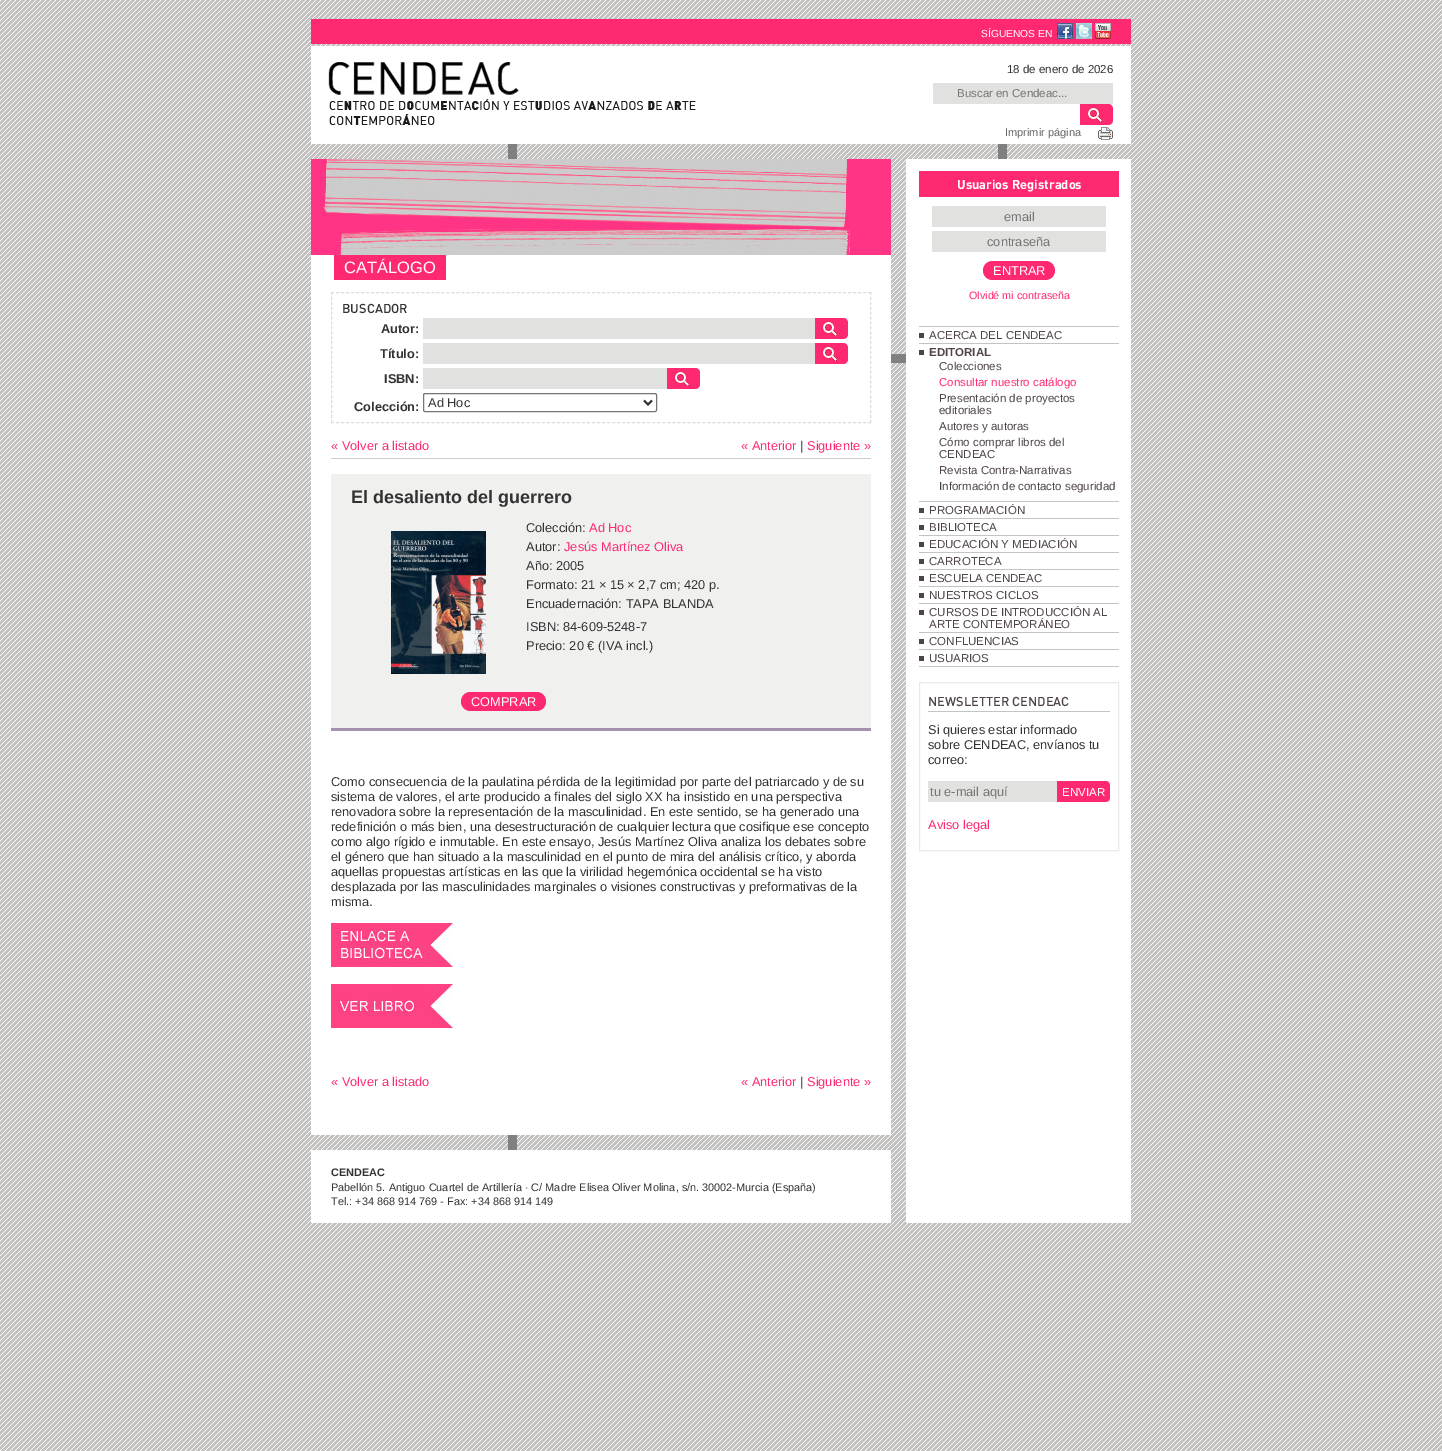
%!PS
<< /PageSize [1442 1451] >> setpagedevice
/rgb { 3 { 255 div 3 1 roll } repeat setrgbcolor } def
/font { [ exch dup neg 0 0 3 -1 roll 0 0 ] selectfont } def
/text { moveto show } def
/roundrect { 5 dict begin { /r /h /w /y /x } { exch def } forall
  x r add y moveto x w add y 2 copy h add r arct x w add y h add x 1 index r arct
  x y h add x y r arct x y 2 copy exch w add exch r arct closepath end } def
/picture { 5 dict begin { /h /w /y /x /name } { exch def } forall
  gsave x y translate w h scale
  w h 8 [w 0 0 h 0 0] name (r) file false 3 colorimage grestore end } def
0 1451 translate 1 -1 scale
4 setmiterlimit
196 195 193 rgb
0 0 1442 1451 rectfill
(img_01.rgb) 0 0 1442 1451 picture
(img_02.rgb) 508 144 499 1006 picture
255 41 114 rgb
311 19 820 25 rectfill
(img_03.rgb) 1057 23 16 16 picture
(img_04.rgb) 1076 23 16 16 picture
(img_05.rgb) 1095 23 16 16 picture
255 255 255 rgb
311 46 820 98 rectfill
(img_06.rgb) 328 62 368 63 picture
225 225 224 rgb
933 83 180 21 rectfill
255 41 114 rgb
1080 104 moveto 28 0 rlineto 3 0 5 2 5 5 rcurveto 0 11 rlineto 0 3 -2 5 -5 5 rcurveto -28 0 rlineto closepath fill
(img_07.rgb) 1088 108 14 14 picture
(img_08.rgb) 1098 127 15 13 picture
255 255 255 rgb
906 159 225 1064 rectfill
(img_09.rgb) 311 159 580 96 picture
255 41 114 rgb
919 171 200 26 rectfill
225 225 224 rgb
932 206 174 21 rectfill
932 231 174 21 rectfill
255 41 114 rgb
983 261 72 19 9.5 roundrect fill
196 196 194 rgb
919 666 200 1 rectfill
79 69 71 rgb
919 333 5 5 rectfill
196 196 194 rgb
919 326 200 1 rectfill
79 69 71 rgb
919 350 5 5 rectfill
196 196 194 rgb
919 343 200 1 rectfill
79 69 71 rgb
919 508 5 5 rectfill
196 196 194 rgb
919 501 200 1 rectfill
79 69 71 rgb
919 525 5 5 rectfill
196 196 194 rgb
919 518 200 1 rectfill
79 69 71 rgb
919 542 5 5 rectfill
196 196 194 rgb
919 535 200 1 rectfill
79 69 71 rgb
919 559 5 5 rectfill
196 196 194 rgb
919 552 200 1 rectfill
79 69 71 rgb
919 576 5 5 rectfill
196 196 194 rgb
919 569 200 1 rectfill
79 69 71 rgb
919 593 5 5 rectfill
196 196 194 rgb
919 586 200 1 rectfill
79 69 71 rgb
919 610 5 5 rectfill
196 196 194 rgb
919 603 200 1 rectfill
79 69 71 rgb
919 639 5 5 rectfill
196 196 194 rgb
919 632 200 1 rectfill
79 69 71 rgb
919 656 5 5 rectfill
196 196 194 rgb
919 649 200 1 rectfill
234 233 233 rgb
919.5 682.5 199 168 rectstroke
196 196 194 rgb
928 711 182 1 rectfill
225 225 224 rgb
928 781 182 21 rectfill
255 41 114 rgb
1057 781 moveto 48 0 rlineto 3 0 5 2 5 5 rcurveto 0 11 rlineto 0 3 -2 5 -5 5 rcurveto -48 0 rlineto closepath fill
255 255 255 rgb
311 255 580 880 rectfill
255 41 114 rgb
334 255 112 25 rectfill
221 221 221 rgb
[3 2.02] 0 setdash
331 292.5 moveto 540 0 rlineto stroke
[3 1.92] 0 setdash
870.5 292 moveto 0 131 rlineto stroke
[3 2.02] 0 setdash
331 422.5 moveto 540 0 rlineto stroke
[3 1.92] 0 setdash
331.5 292 moveto 0 131 rlineto stroke
225 225 224 rgb
423 318 392 21 rectfill
255 41 114 rgb
815 318 moveto 28 0 rlineto 3 0 5 2 5 5 rcurveto 0 11 rlineto 0 3 -2 5 -5 5 rcurveto -28 0 rlineto closepath fill
(img_07.rgb) 823 322 14 14 picture
225 225 224 rgb
423 343 392 21 rectfill
255 41 114 rgb
815 343 moveto 28 0 rlineto 3 0 5 2 5 5 rcurveto 0 11 rlineto 0 3 -2 5 -5 5 rcurveto -28 0 rlineto closepath fill
(img_07.rgb) 823 347 14 14 picture
225 225 224 rgb
423 368 244 21 rectfill
255 41 114 rgb
667 368 moveto 28 0 rlineto 3 0 5 2 5 5 rcurveto 0 11 rlineto 0 3 -2 5 -5 5 rcurveto -28 0 rlineto closepath fill
(img_07.rgb) 675 372 14 14 picture
118 118 118 rgb
[] 0 setdash
423.5 393.5 233 18 1.5 roundrect stroke
51 51 51 rgb
2 setlinewidth
644 400.5 moveto 4 4 rlineto 4 -4 rlineto stroke
204 204 204 rgb
331 458 540 1 rectfill
240 240 239 rgb
331 474 540 254 rectfill
164 145 173 rgb
331 728 540 3 rectfill
(img_10.rgb) 391 531 95 143 picture
255 41 114 rgb
461 692 85 19 9.5 roundrect fill
(img_11.rgb) 331 923 122 44 picture
(img_12.rgb) 331 984 122 44 picture
255 255 255 rgb
311 1150 580 73 rectfill
/LiberationSans-Regular 10.25 font
(SÍGUENOS EN) 981 37 text
/LiberationSans-Regular 11.5 font
51 51 51 rgb
(18 de enero de 2026) 1007 73 text
117 117 117 rgb
(Buscar en Cendeac...) 957 97 text
/LiberationSans-Regular 11 font
102 102 102 rgb
(Imprimir página) 1005 136 text
/DIN-Bold 12.8 font
255 255 255 rgb
(Usuarios Registrados) 957 189 text
/LiberationSans-Regular 12.8 font
117 117 117 rgb
(email) 1004 221 text
(contraseña) 987 246 text
255 255 255 rgb
(ENTRAR) 993 275 text
/LiberationSans-Regular 10.75 font
255 41 114 rgb
(Olvidé mi contraseña) 969 299 text
/LiberationSans-Regular 11.5 font
79 69 71 rgb
(ACERCA DEL CENDEAC) 929 339 text
/LiberationSans-Bold 11.5 font
(EDITORIAL) 929 356 text
/LiberationSans-Regular 11.5 font
(Colecciones) 939 370 text
255 41 114 rgb
(Consultar nuestro catálogo) 939 386 text
79 69 71 rgb
(Presentación de proyectos) 939 402 text
(editoriales) 939 414 text
(Autores y autoras) 939 430 text
(Cómo comprar libros del) 939 446 text
(CENDEAC) 939 458 text
(Revista Contra-Narrativas) 939 474 text
(Información de contacto seguridad) 939 490 text
(PROGRAMACIÓN) 929 514 text
(BIBLIOTECA) 929 531 text
(EDUCACIÓN Y MEDIACIÓN) 929 548 text
(CARROTECA) 929 565 text
(ESCUELA CENDEAC) 929 582 text
(NUESTROS CICLOS) 929 599 text
(CURSOS DE INTRODUCCIÓN AL) 929 616 text
(ARTE CONTEMPORÁNEO) 929 628 text
(CONFLUENCIAS) 929 645 text
(USUARIOS) 929 662 text
/DIN-Medium 12.8 font
(NEWSLETTER CENDEAC) 928 706 text
/LiberationSans-Regular 12.8 font
51 51 51 rgb
(Si quieres estar informado) 928 734 text
(sobre CENDEAC, envíanos tu) 928 749 text
(correo:) 928 764 text
117 117 117 rgb
(tu e-mail aquí) 930 796 text
/LiberationSans-Regular 11.5 font
255 255 255 rgb
(ENVIAR) 1062 796 text
/LiberationSans-Regular 12.8 font
255 41 114 rgb
(Aviso legal) 928 829 text
/LiberationSans-Regular 16.5 font
255 255 255 rgb
(CATÁLOGO) 344 273 text
/DIN-Medium 12.8 font
51 51 51 rgb
(BUSCADOR) 342 313 text
/LiberationSans-Bold 12.8 font
(Autor:) 381 333 text
(Título:) 380 358 text
(ISBN:) 384 383 text
(Colección:) 354 411 text
/LiberationSans-Regular 12.8 font
(Ad Hoc) 428 407 text
255 41 114 rgb
(« Volver a listado) 331 450 text
(« Anterior) 741 450 text
51 51 51 rgb
(|) 800 450 text
255 41 114 rgb
(Siguiente ») 807 450 text
/LiberationSans-Bold 18 font
51 51 51 rgb
(El desaliento del guerrero) 351 503 text
/LiberationSans-Regular 12.8 font
(Colección:) 526 532 text
255 41 114 rgb
(Ad Hoc) 589 532 text
51 51 51 rgb
(Autor:) 526 551 text
255 41 114 rgb
(Jesús Martínez Oliva) 564 551 text
51 51 51 rgb
(Año: 2005) 526 570 text
(Formato: 21 × 15 × 2,7 cm; 420 p.) 526 589 text
(Encuadernación: TAPA BLANDA) 526 608 text
(ISBN: 84-609-5248-7) 526 631 text
(Precio: 20 € \(IVA incl.\)) 526 650 text
255 255 255 rgb
(COMPRAR) 471 706 text
51 51 51 rgb
(Como consecuencia de la paulatina pérdida de la legitimidad por parte del patriarcado y de su) 331 786 text
(sistema de valores, el arte producido a finales del siglo XX ha insistido en una perspectiva) 331 801 text
(renovadora sobre la representación de la masculinidad. En este sentido, se ha generado una) 331 816 text
(redefinición o más bien, una desestructuración de cualquier lectura que cosifique ese concepto) 331 831 text
(como algo rígido e inmutable. En este ensayo, Jesús Martínez Oliva analiza los debates sobre) 331 846 text
(el género que han situado a la masculinidad en el punto de mira del análisis crítico, y aborda) 331 861 text
(aquellas propuestas artísticas en las que la virilidad hegemónica occidental se ha visto) 331 876 text
(desplazada por las masculinidades marginales o visiones constructivas y preformativas de la) 331 891 text
(misma.) 331 906 text
255 41 114 rgb
(« Volver a listado) 331 1086 text
(« Anterior) 741 1086 text
51 51 51 rgb
(|) 800 1086 text
255 41 114 rgb
(Siguiente ») 807 1086 text
/LiberationSans-Bold 10.9 font
51 51 51 rgb
(CENDEAC) 331 1176 text
/LiberationSans-Regular 10.9 font
(Pabellón 5. Antiguo Cuartel de Artillería · C/ Madre Elisea Oliver Molina, s/n. 30002-Murcia \(España\)) 331 1191 text
(Tel.: +34 868 914 769 - Fax: +34 868 914 149) 331 1205 text
showpage
